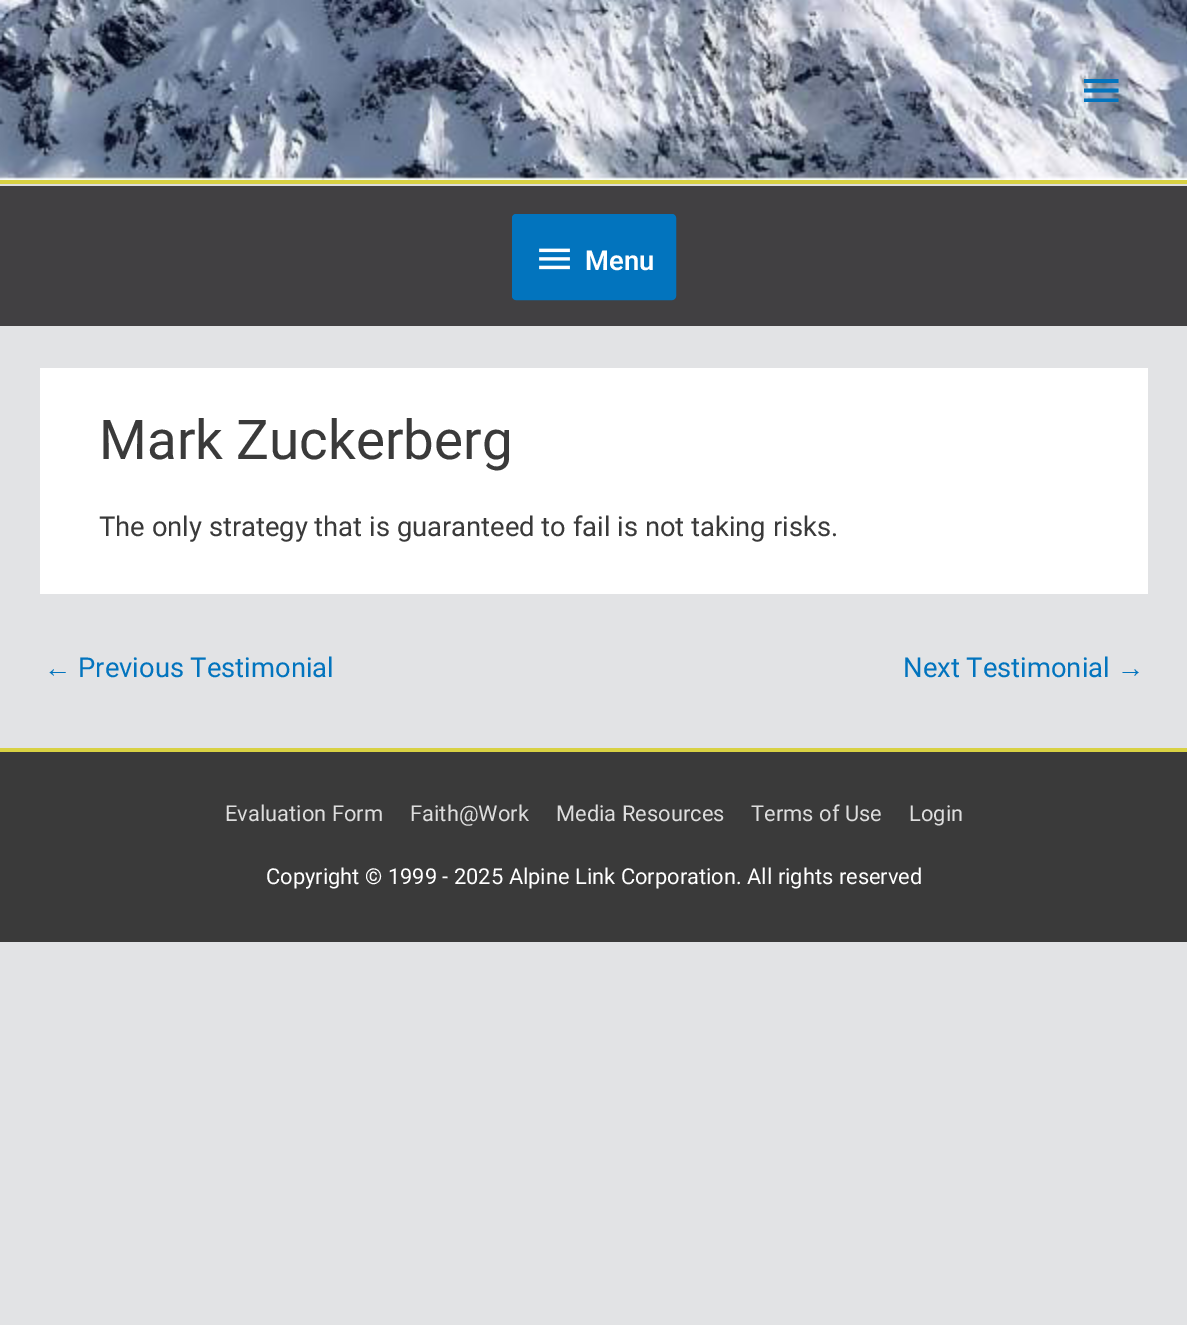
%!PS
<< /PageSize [1187 1325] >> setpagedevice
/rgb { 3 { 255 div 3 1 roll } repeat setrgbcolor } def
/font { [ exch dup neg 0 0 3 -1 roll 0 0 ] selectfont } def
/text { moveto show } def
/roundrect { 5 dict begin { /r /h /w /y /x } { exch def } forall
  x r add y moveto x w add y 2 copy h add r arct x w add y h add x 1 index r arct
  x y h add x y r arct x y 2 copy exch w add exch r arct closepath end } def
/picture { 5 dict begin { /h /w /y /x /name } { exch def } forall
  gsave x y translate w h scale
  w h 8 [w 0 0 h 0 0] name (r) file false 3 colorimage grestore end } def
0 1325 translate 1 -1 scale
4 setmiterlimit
226 227 229 rgb
0 0 1187 1325 rectfill
(img_01.rgb) 0 0 1187 180 picture
216 209 67 rgb
0 180 1187 4 rectfill
2 116 190 rgb
1084 79 moveto 34.5 0 rlineto 0 4 rlineto -34.5 0 rlineto closepath 1084 92.5 moveto 0 -4 rlineto 34.5 0 rlineto 0 4 rlineto closepath 1084 102 moveto 0 -3.5 rlineto 34.5 0 rlineto 0 3.5 rlineto closepath fill
65 64 66 rgb
0 186 1187 140 rectfill
221 221 221 rgb
0 184 1187 2 rectfill
2 116 190 rgb
513 215 162 84 3 roundrect gsave fill grestore
2 setlinewidth
stroke
(img_02.rgb) 539 248 31 22 picture
255 255 255 rgb
40 368 1108 226 rectfill
216 209 67 rgb
0 748 1187 4 rectfill
58 58 58 rgb
0 752 1187 190 rectfill
/Roboto-SemiBold 27.35 font
255 255 255 rgb
(Menu) 585 270 text
/Roboto-Regular 54.75 font
58 58 58 rgb
(Mark Zuckerberg) 99 459 text
/Roboto-Regular 27.35 font
(The only strategy that is guaranteed to fail is not taking risks.) 99 536 text
/LiberationSans-Regular 27.35 font
2 116 190 rgb
(←) 44 677 text
/Roboto-Regular 27.35 font
(Previous Testimonial) 78 677 text
(Next Testimonial) 903 677 text
/LiberationSans-Regular 27.35 font
(→) 1117 677 text
/Roboto-Regular 21.9 font
221 221 221 rgb
(Evaluation Form) 225 821 text
(Faith@Work) 410 821 text
(Media Resources) 556 821 text
(Terms of Use) 751 821 text
(Login) 909 821 text
255 255 255 rgb
(Copyright © 1999 - 2025 Alpine Link Corporation. All rights reserved) 266 884 text
showpage
